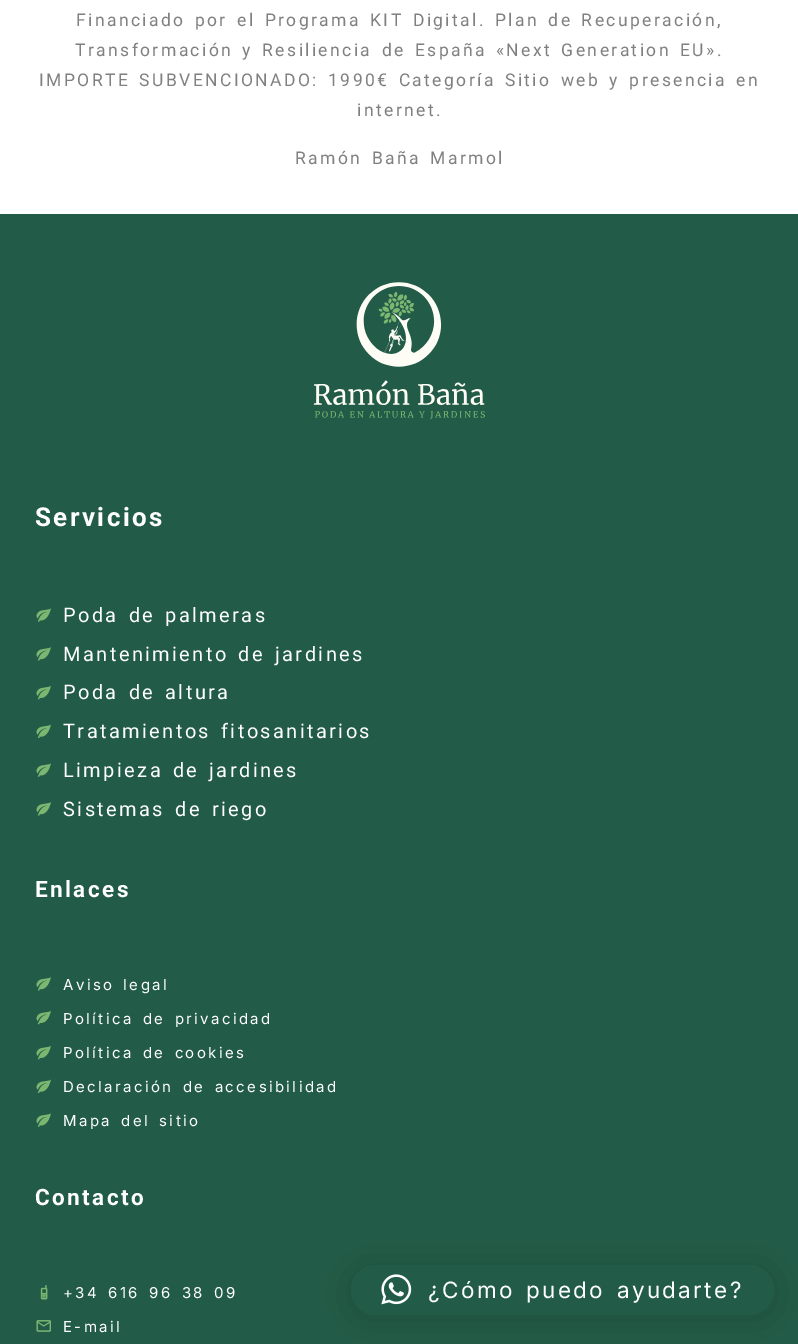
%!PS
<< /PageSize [798 1344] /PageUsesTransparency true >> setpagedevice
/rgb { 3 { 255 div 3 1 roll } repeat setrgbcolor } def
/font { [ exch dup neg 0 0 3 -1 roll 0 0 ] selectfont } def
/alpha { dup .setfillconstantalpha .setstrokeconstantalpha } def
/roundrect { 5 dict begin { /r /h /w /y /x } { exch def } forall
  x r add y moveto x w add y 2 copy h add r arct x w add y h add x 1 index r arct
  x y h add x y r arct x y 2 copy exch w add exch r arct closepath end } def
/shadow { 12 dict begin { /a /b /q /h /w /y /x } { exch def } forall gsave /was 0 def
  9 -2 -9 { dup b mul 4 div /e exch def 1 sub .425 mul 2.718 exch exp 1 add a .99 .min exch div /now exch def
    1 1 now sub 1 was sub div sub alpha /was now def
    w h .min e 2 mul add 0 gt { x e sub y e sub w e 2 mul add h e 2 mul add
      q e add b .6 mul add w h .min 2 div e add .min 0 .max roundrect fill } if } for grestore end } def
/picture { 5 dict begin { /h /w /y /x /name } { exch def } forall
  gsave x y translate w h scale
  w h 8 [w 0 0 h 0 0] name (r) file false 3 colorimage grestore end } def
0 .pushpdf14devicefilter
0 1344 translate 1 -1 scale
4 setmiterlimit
255 255 255 rgb
0 0 798 1344 rectfill
34 92 72 rgb
0 214 798 1130 rectfill
(img_01.rgb) 313 282 172 138 picture
(img_02.rgb) 36 608 15 14 picture
(img_03.rgb) 36 647 15 14 picture
(img_04.rgb) 36 685 15 15 picture
(img_05.rgb) 36 724 15 14 picture
(img_02.rgb) 36 763 15 14 picture
(img_03.rgb) 36 802 15 14 picture
(img_03.rgb) 36 977 15 14 picture
(img_04.rgb) 36 1010 15 15 picture
(img_04.rgb) 36 1045 15 15 picture
(img_05.rgb) 36 1079 15 14 picture
(img_02.rgb) 36 1113 15 14 picture
(img_06.rgb) 40 1285 8 15 picture
(img_07.rgb) 36 1320 15 12 picture
0 0 0 rgb
351 1268 423 50 25 20 0.16 shadow
34 92 72 rgb
351 1265 423 50 25 roundrect fill
(img_08.rgb) 381 1274 31 31 picture
/Roboto-Regular 17.5 font
128 128 128 rgb
76 26 moveto 2.5 0 32 2.4 0 (Financiado por el Programa KIT Digital. Plan de Recuperación,) awidthshow
75 56 moveto 2.5 0 32 2.4 0 (Transformación y Resiliencia de España «Next Generation EU».) awidthshow
39 86 moveto 2.5 0 32 2.4 0 (IMPORTE SUBVENCIONADO: 1990€ Categoría Sitio web y presencia en) awidthshow
357 116 moveto 2.4 0 (internet.) ashow
295 164 moveto 2.5 0 32 2.4 0 (Ramón Baña Marmol) awidthshow
/Roboto-Bold 26 font
255 255 255 rgb
35 526 moveto 2.4 0 (Servicios) ashow
/Roboto-Regular 20 font
63 622 moveto 2.5 0 32 2.4 0 (Poda de palmeras) awidthshow
63 661 moveto 2.5 0 32 2.4 0 (Mantenimiento de jardines) awidthshow
63 699 moveto 2.5 0 32 2.4 0 (Poda de altura) awidthshow
63 738 moveto 2.5 0 32 2.4 0 (Tratamientos fitosanitarios) awidthshow
63 777 moveto 2.5 0 32 2.4 0 (Limpieza de jardines) awidthshow
63 816 moveto 2.5 0 32 2.4 0 (Sistemas de riego) awidthshow
/Roboto-Bold 22.5 font
35 897 moveto 2.4 0 (Enlaces) ashow
/Inter-Regular 15 font
63 990 moveto 2.5 0 32 2.4 0 (Aviso legal) awidthshow
63 1024 moveto 2.5 0 32 2.4 0 (Política de privacidad) awidthshow
63 1058 moveto 2.5 0 32 2.4 0 (Política de cookies) awidthshow
63 1092 moveto 2.5 0 32 2.4 0 (Declaración de accesibilidad) awidthshow
63 1126 moveto 2.5 0 32 2.4 0 (Mapa del sitio) awidthshow
/Roboto-Bold 22.5 font
35 1205 moveto 2.4 0 (Contacto) ashow
/Inter-Regular 15 font
63 1298 moveto 2.5 0 32 2.4 0 (+34 616 96 38 09) awidthshow
63 1332 moveto 2.4 0 (E-mail) ashow
/Inter-Regular 22.5 font
428 1298 moveto 2.5 0 32 2.4 0 (¿Cómo puedo ayudarte?) awidthshow
.poppdf14devicefilter showpage
